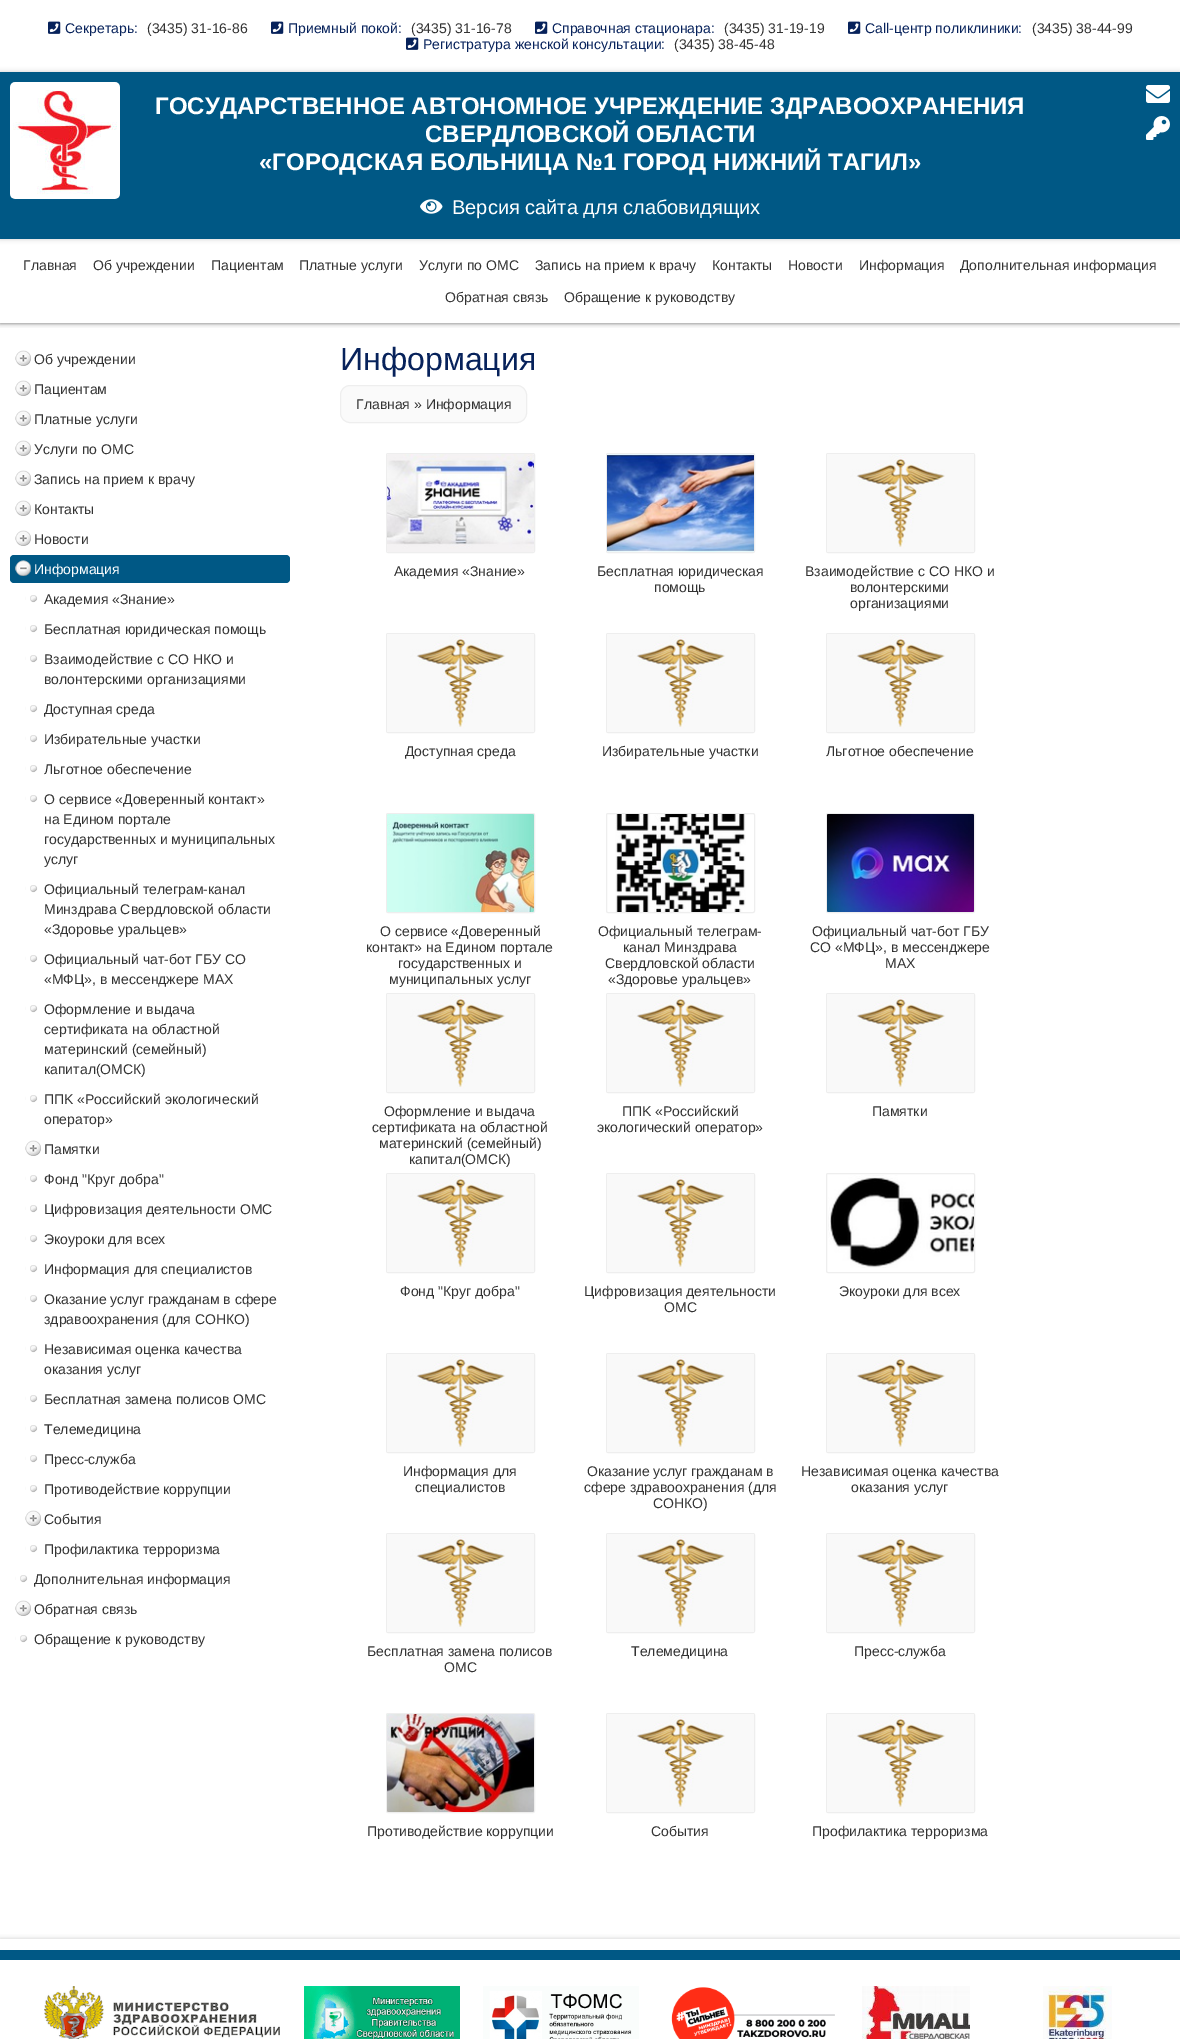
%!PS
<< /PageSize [1180 2039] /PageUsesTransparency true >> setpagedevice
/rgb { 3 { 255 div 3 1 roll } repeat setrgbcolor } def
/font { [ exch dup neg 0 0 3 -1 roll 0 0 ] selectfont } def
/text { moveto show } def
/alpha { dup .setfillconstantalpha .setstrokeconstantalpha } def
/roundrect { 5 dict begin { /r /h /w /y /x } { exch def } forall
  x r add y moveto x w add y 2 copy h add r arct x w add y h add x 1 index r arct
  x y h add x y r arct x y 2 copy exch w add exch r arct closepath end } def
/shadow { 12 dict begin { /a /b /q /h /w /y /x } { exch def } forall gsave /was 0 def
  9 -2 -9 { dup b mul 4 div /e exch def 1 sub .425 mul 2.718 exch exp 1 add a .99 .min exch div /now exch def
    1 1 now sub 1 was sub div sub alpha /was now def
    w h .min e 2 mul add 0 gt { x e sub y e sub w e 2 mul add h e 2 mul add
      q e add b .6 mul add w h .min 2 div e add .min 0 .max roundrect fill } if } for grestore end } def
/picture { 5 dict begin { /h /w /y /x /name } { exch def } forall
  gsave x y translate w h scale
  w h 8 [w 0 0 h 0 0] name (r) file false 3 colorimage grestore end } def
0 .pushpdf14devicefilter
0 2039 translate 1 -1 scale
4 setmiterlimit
255 255 255 rgb
0 0 1180 2039 rectfill
(img_01.rgb) 48 21 13 13 picture
(img_01.rgb) 271 21 13 13 picture
(img_01.rgb) 535 21 13 13 picture
(img_01.rgb) 848 21 13 13 picture
(img_01.rgb) 406 37 13 13 picture
204 204 204 rgb
0 72 1180 167 0 2.5 1 shadow
gsave
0 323 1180 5 rectclip
102 102 102 rgb
0 239 1180 84 0 2.5 1 shadow
grestore
0 88 133 rgb
0 72 1180 167 rectfill
(img_02.rgb) 10 82 110 117 picture
(img_03.rgb) 1146 85 24 18 picture
(img_04.rgb) 1146 116 24 24 picture
(img_05.rgb) 420 199 23 15 picture
(img_06.rgb) 15 350 16 16 picture
(img_06.rgb) 15 380 16 16 picture
(img_06.rgb) 15 410 16 16 picture
(img_06.rgb) 15 440 16 16 picture
(img_06.rgb) 15 470 16 16 picture
(img_06.rgb) 15 500 16 16 picture
(img_06.rgb) 15 530 16 16 picture
10 555 280 28 4 roundrect fill
(img_07.rgb) 15 560 16 16 picture
(img_08.rgb) 25 595 13 8 picture
(img_08.rgb) 25 625 13 8 picture
(img_08.rgb) 25 655 13 8 picture
(img_08.rgb) 25 705 13 8 picture
(img_08.rgb) 25 735 13 8 picture
(img_08.rgb) 25 765 13 8 picture
(img_08.rgb) 25 795 13 8 picture
(img_08.rgb) 25 885 13 8 picture
(img_08.rgb) 25 955 13 8 picture
(img_08.rgb) 25 1005 13 8 picture
(img_08.rgb) 25 1095 13 8 picture
(img_06.rgb) 25 1140 16 16 picture
(img_08.rgb) 25 1175 13 8 picture
(img_08.rgb) 25 1205 13 8 picture
(img_08.rgb) 25 1235 13 8 picture
(img_08.rgb) 25 1265 13 8 picture
(img_08.rgb) 25 1295 13 8 picture
(img_08.rgb) 25 1345 13 8 picture
(img_08.rgb) 25 1395 13 8 picture
(img_08.rgb) 25 1425 13 8 picture
(img_08.rgb) 25 1455 13 8 picture
(img_08.rgb) 25 1485 13 8 picture
(img_06.rgb) 25 1510 16 16 picture
(img_08.rgb) 25 1545 13 8 picture
(img_08.rgb) 15 1575 13 8 picture
(img_06.rgb) 15 1600 16 16 picture
(img_08.rgb) 15 1635 13 8 picture
250 250 250 rgb
340.5 385.5 186 37 9.5 roundrect gsave fill grestore
238 238 238 rgb
stroke
386.5 453.5 148 99 1.5 roundrect stroke
(img_09.rgb) 387 454 147 98 picture
606.5 453.5 148 99 1.5 roundrect stroke
(img_10.rgb) 607 454 147 98 picture
826.5 453.5 148 99 1.5 roundrect stroke
(img_11.rgb) 827 454 147 98 picture
386.5 633.5 148 99 1.5 roundrect stroke
(img_12.rgb) 387 634 147 98 picture
606.5 633.5 148 99 1.5 roundrect stroke
(img_11.rgb) 607 634 147 98 picture
826.5 633.5 148 99 1.5 roundrect stroke
(img_11.rgb) 827 634 147 98 picture
386.5 813.5 148 99 1.5 roundrect stroke
(img_13.rgb) 387 814 147 98 picture
606.5 813.5 148 99 1.5 roundrect stroke
(img_14.rgb) 615 814 131 98 picture
826.5 813.5 148 99 1.5 roundrect stroke
(img_15.rgb) 827 814 147 98 picture
386.5 993.5 148 99 1.5 roundrect stroke
(img_16.rgb) 387 994 147 98 picture
606.5 993.5 148 99 1.5 roundrect stroke
(img_17.rgb) 607 994 147 98 picture
826.5 993.5 148 99 1.5 roundrect stroke
(img_17.rgb) 827 994 147 98 picture
386.5 1173.5 148 99 1.5 roundrect stroke
(img_12.rgb) 387 1174 147 98 picture
606.5 1173.5 148 99 1.5 roundrect stroke
(img_11.rgb) 607 1174 147 98 picture
826.5 1173.5 148 99 1.5 roundrect stroke
(img_18.rgb) 828 1175 146 93 picture
386.5 1353.5 148 99 1.5 roundrect stroke
(img_19.rgb) 387 1354 147 98 picture
606.5 1353.5 148 99 1.5 roundrect stroke
(img_20.rgb) 607 1354 147 98 picture
826.5 1353.5 148 99 1.5 roundrect stroke
(img_20.rgb) 827 1354 147 98 picture
386.5 1533.5 148 99 1.5 roundrect stroke
(img_12.rgb) 387 1534 147 98 picture
606.5 1533.5 148 99 1.5 roundrect stroke
(img_11.rgb) 607 1534 147 98 picture
826.5 1533.5 148 99 1.5 roundrect stroke
(img_11.rgb) 827 1534 147 98 picture
386.5 1713.5 148 99 1.5 roundrect stroke
(img_21.rgb) 387 1714 147 98 picture
606.5 1713.5 148 99 1.5 roundrect stroke
(img_11.rgb) 607 1714 147 98 picture
826.5 1713.5 148 99 1.5 roundrect stroke
(img_11.rgb) 827 1714 147 98 picture
gsave
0 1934 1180 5 rectclip
204 204 204 rgb
0 1939 1180 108 0 2.5 1 shadow
grestore
0 88 133 rgb
0 1950 1180 10 rectfill
(img_22.rgb) 44 1986 236 53 picture
(img_23.rgb) 304 1986 156 53 picture
(img_24.rgb) 483 1986 156 53 picture
(img_25.rgb) 671 1987 164 52 picture
(img_26.rgb) 862 1986 108 53 picture
(img_27.rgb) 1043 1986 69 53 picture
/LiberationSans-Regular 14 font
7 34 91 rgb
(Секретарь:) 65 33 text
51 51 51 rgb
(\(3435\) 31-16-86) 147 33 text
7 34 91 rgb
(Приемный покой:) 288 33 text
51 51 51 rgb
(\(3435\) 31-16-78) 411 33 text
7 34 91 rgb
(Справочная стационара:) 552 33 text
51 51 51 rgb
(\(3435\) 31-19-19) 724 33 text
7 34 91 rgb
(Call-центр поликлиники:) 865 33 text
51 51 51 rgb
(\(3435\) 38-44-99) 1032 33 text
7 34 91 rgb
(Регистратура женской консультации:) 423 49 text
51 51 51 rgb
(\(3435\) 38-45-48) 674 49 text
/LiberationSans-Bold 24 font
255 255 255 rgb
(ГОСУДАРСТВЕННОЕ АВТОНОМНОЕ УЧРЕЖДЕНИЕ ЗДРАВООХРАНЕНИЯ) 155 114 text
(СВЕРДЛОВСКОЙ ОБЛАСТИ) 425 142 text
(«ГОРОДСКАЯ БОЛЬНИЦА №1 ГОРОД НИЖНИЙ ТАГИЛ») 259 170 text
/LiberationSans-Regular 20 font
(Версия сайта для слабовидящих) 452 214 text
/LiberationSans-Regular 14 font
51 51 51 rgb
(Главная) 23 270 text
(Об учреждении) 93 270 text
(Пациентам) 211 270 text
(Платные услуги) 299 270 text
(Услуги по ОМС) 419 270 text
(Запись на прием к врачу) 535 270 text
(Контакты) 712 270 text
(Новости) 788 270 text
(Информация) 859 270 text
(Дополнительная информация) 960 270 text
(Обратная связь) 445 302 text
(Обращение к руководству) 564 302 text
(Об учреждении) 34 364 text
(Пациентам) 34 394 text
(Платные услуги) 34 424 text
(Услуги по ОМС) 34 454 text
(Запись на прием к врачу) 34 484 text
(Контакты) 34 514 text
(Новости) 34 544 text
255 255 255 rgb
(Информация) 34 574 text
51 51 51 rgb
(Академия «Знание») 44 604 text
(Бесплатная юридическая помощь) 44 634 text
(Взаимодействие с СО НКО и) 44 664 text
(волонтерскими организациями) 44 684 text
(Доступная среда) 44 714 text
(Избирательные участки) 44 744 text
(Льготное обеспечение) 44 774 text
(О сервисе «Доверенный контакт») 44 804 text
(на Едином портале) 44 824 text
(государственных и муниципальных) 44 844 text
(услуг) 44 864 text
(Официальный телеграм-канал) 44 894 text
(Минздрава Свердловской области) 44 914 text
(«Здоровье уральцев») 44 934 text
(Официальный чат-бот ГБУ СО) 44 964 text
(«МФЦ», в мессенджере MAX) 44 984 text
(Оформление и выдача) 44 1014 text
(сертификата на областной) 44 1034 text
(материнский \(семейный\)) 44 1054 text
(капитал\(ОМСК\)) 44 1074 text
(ППK «Российский экологический) 44 1104 text
(оператор») 44 1124 text
(Памятки) 44 1154 text
(Фонд "Круг добра") 44 1184 text
(Цифровизация деятельности ОМС) 44 1214 text
(Экоуроки для всех) 44 1244 text
(Информация для специалистов) 44 1274 text
(Оказание услуг гражданам в сфере) 44 1304 text
(здравоохранения \(для СОНКО\)) 44 1324 text
(Независимая оценка качества) 44 1354 text
(оказания услуг) 44 1374 text
(Бесплатная замена полисов ОМС) 44 1404 text
(Телемедицина) 44 1434 text
(Пресс-служба) 44 1464 text
(Противодействие коррупции) 44 1494 text
(События) 44 1524 text
(Профилактика терроризма) 44 1554 text
(Дополнительная информация) 34 1584 text
(Обратная связь) 34 1614 text
(Обращение к руководству) 34 1644 text
/LiberationSans-Regular 32 font
7 34 91 rgb
(Информация) 340 370 text
/LiberationSans-Regular 14 font
51 51 51 rgb
(Главная » Информация) 356 409 text
(Академия «Знание») 394 576 text
(Бесплатная юридическая) 597 576 text
(помощь) 654 592 text
(Взаимодействие с СО НКО и) 805 576 text
(волонтерскими) 850 592 text
(организациями) 850 608 text
(Доступная среда) 405 756 text
(Избирательные участки) 602 756 text
(Льготное обеспечение) 826 756 text
(О сервисе «Доверенный) 380 936 text
(контакт» на Едином портале) 366 952 text
(государственных и) 398 968 text
(муниципальных услуг) 389 984 text
(Официальный телеграм-) 598 936 text
(канал Минздрава) 623 952 text
(Свердловской области) 605 968 text
(«Здоровье уральцев») 608 984 text
(Официальный чат-бот ГБУ) 812 936 text
(СО «МФЦ», в мессенджере) 810 952 text
(MAX) 885 968 text
(Оформление и выдача) 384 1116 text
(сертификата на областной) 372 1132 text
(материнский \(семейный\)) 379 1148 text
(капитал\(ОМСК\)) 409 1164 text
(ППK «Российский) 622 1116 text
(экологический оператор») 597 1132 text
(Памятки) 872 1116 text
(Фонд "Круг добра") 400 1296 text
(Цифровизация деятельности) 584 1296 text
(ОМС) 664 1312 text
(Экоуроки для всех) 839 1296 text
(Информация для) 403 1476 text
(специалистов) 415 1492 text
(Оказание услуг гражданам в) 587 1476 text
(сфере здравоохранения \(для) 584 1492 text
(СОНКО\)) 653 1508 text
(Независимая оценка качества) 801 1476 text
(оказания услуг) 851 1492 text
(Бесплатная замена полисов) 367 1656 text
(ОМС) 444 1672 text
(Телемедицина) 631 1656 text
(Пресс-служба) 854 1656 text
(Противодействие коррупции) 367 1836 text
(События) 651 1836 text
(Профилактика терроризма) 812 1836 text
.poppdf14devicefilter showpage
